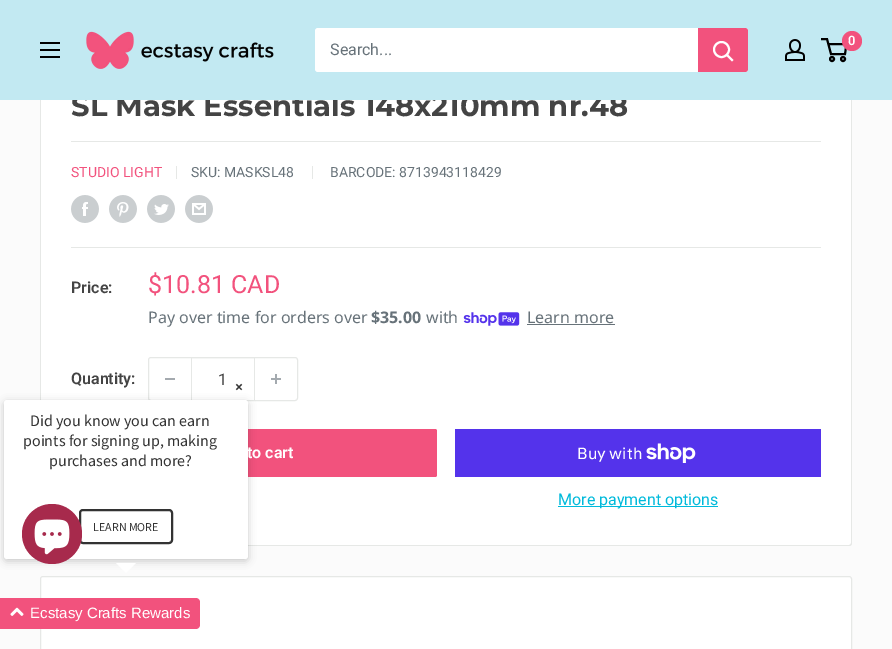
%!PS
<< /PageSize [892 649] /PageUsesTransparency true >> setpagedevice
/rgb { 3 { 255 div 3 1 roll } repeat setrgbcolor } def
/font { [ exch dup neg 0 0 3 -1 roll 0 0 ] selectfont } def
/text { moveto show } def
/alpha { dup .setfillconstantalpha .setstrokeconstantalpha } def
/circle { newpath 0 360 arc closepath } def
/roundrect { 5 dict begin { /r /h /w /y /x } { exch def } forall
  x r add y moveto x w add y 2 copy h add r arct x w add y h add x 1 index r arct
  x y h add x y r arct x y 2 copy exch w add exch r arct closepath end } def
/shadow { 12 dict begin { /a /b /q /h /w /y /x } { exch def } forall gsave /was 0 def
  9 -2 -9 { dup b mul 4 div /e exch def 1 sub .425 mul 2.718 exch exp 1 add a .99 .min exch div /now exch def
    1 1 now sub 1 was sub div sub alpha /was now def
    w h .min e 2 mul add 0 gt { x e sub y e sub w e 2 mul add h e 2 mul add
      q e add b .6 mul add w h .min 2 div e add .min 0 .max roundrect fill } if } for grestore end } def
/picture { 5 dict begin { /h /w /y /x /name } { exch def } forall
  gsave x y translate w h scale
  w h 8 [w 0 0 h 0 0] name (r) file false 3 colorimage grestore end } def
0 .pushpdf14devicefilter
0 649 translate 1 -1 scale
4 setmiterlimit
251 251 251 rgb
0 0 892 649 rectfill
255 255 255 rgb
40 85 812 461 3 roundrect fill
230 232 230 rgb
43 85 moveto 806 0 rlineto 2 0 3 1 3 3 rcurveto 0 455 rlineto 0 2 -1 3 -3 3 rcurveto -806 0 rlineto -2 0 -3 -1 -3 -3 rcurveto 0 -455 rlineto 0 -2 1 -3 3 -3 rcurveto closepath 43 85 moveto 806 0 rlineto 1 0 2 1 2 3 rcurveto 0 455 rlineto 0 1 -1 2 -2 2 rcurveto -806 0 rlineto -1 0 -2 -1 -2 -2 rcurveto 0 -455 rlineto 0 -2 1 -3 2 -3 rcurveto closepath eofill
71 141 750 1 rectfill
176 166 1 13 rectfill
312 166 1 13 rectfill
(img_04.rgb) 71 195 28 28 picture
(img_05.rgb) 109 195 28 28 picture
(img_06.rgb) 147 195 28 28 picture
(img_07.rgb) 185 195 28 28 picture
71 247 750 1 rectfill
(img_08.rgb) 463 312 57 14 picture
103 114 121 rgb
527 324 88 1 rectfill
230 232 230 rgb
148.5 357.5 149 43 2.5 roundrect stroke
164 170 175 rgb
165 378 10 2 rectfill
245 246 245 rgb
192 358 62 1 rectfill
230 232 230 rgb
254 358 1 42 rectfill
191 358 1 42 rectfill
(img_09.rgb) 271 374 10 10 picture
242 82 125 rgb
71 429 366 48 2 roundrect fill
84 51 235 rgb
455 429 366 48 rectfill
(img_10.rgb) 646 443 50 20 picture
0 186 219 rgb
558 506 160 1 rectfill
255 255 255 rgb
40.5 576.5 811 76 2.5 roundrect gsave fill grestore
230 232 230 rgb
stroke
0 0 0 rgb
4 402 244 159 3 4 0.2 shadow
255 255 255 rgb
4 400 244 159 3 roundrect fill
51 51 51 rgb
2 setlinewidth
80 510 92 33 3 roundrect stroke
255 255 255 rgb
116 563 moveto 20 0 rlineto -10 10 rlineto closepath fill
242 82 125 rgb
0 598 moveto 196 0 rlineto 2 0 4 2 4 4 rcurveto 0 23 rlineto 0 2 -2 4 -4 4 rcurveto -196 0 rlineto closepath fill
(img_11.rgb) 10 607 14 9 picture
167 42 76 rgb
52 534 30 circle fill
(img_12.rgb) 34 519 36 36 picture
/Montserrat-Bold 29 font
68 68 68 rgb
(SL Mask Essentials 148x210mm nr.48) 71 116 text
194 233 242 rgb
0 0 892 100 rectfill
0 0 0 rgb
828.5 44 moveto 18 0 rlineto -1.5 10 rlineto -14 0 rlineto -4 -15 rlineto -6 0 rlineto stroke
242 82 125 rgb
852 41 10 circle fill
/Roboto-SemiBold 13 font
255 255 255 rgb
(0) 848 45 text
315 28 433 44 3 roundrect fill
242 82 125 rgb
698 28 moveto 47 0 rlineto 1.5 0 3 1.5 3 3 rcurveto 0 38 rlineto 0 1.5 -1.5 3 -3 3 rcurveto -47 0 rlineto closepath fill
255 255 255 rgb
2 setlinecap
732 60 moveto -5 -5 rlineto stroke
0 setlinecap
721.5 49.5 7.5 circle stroke
/Roboto-Regular 16 font
103 114 121 rgb
(Search...) 330 55 text
0 0 0 rgb
843 59 2 circle stroke
832 59 2 circle stroke
(img_02.rgb) 785 39 20 22 picture
(img_03.rgb) 40 42 20 16 picture
(img_01.rgb) 86 31 188 38 picture
/Roboto-Regular 14 font
242 82 125 rgb
(STUDIO LIGHT) 71 177 text
103 114 121 rgb
(SKU: MASKSL48) 191 177 text
(BARCODE: 8713943118429) 330 177 text
/Roboto-SemiBold 16 font
68 68 68 rgb
(Price:) 71 293 text
/Roboto-Regular 25 font
242 82 125 rgb
($10.81 CAD) 148 293 text
/NotoSans-Regular 16 font
103 114 121 rgb
(Pay over time for orders over) 148 323 text
/NotoSans-Bold 16 font
($35.00) 371 323 text
/NotoSans-Regular 16 font
(with) 426 323 text
(Learn more) 527 323 text
/Roboto-SemiBold 16 font
68 68 68 rgb
(Quantity:) 71 384 text
/Roboto-Regular 16 font
(1) 218 385 text
/Roboto-SemiBold 16 font
255 255 255 rgb
(to cart) 247 458 text
/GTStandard-Regular 16 font
(Buy with) 577 459 text
/Roboto-Regular 16 font
0 186 219 rgb
(More payment options) 558 505 text
/SourceSansPro-Bold 15 font
51 51 51 rgb
(×) 235 392 text
/SourceSansPro-Regular 16 font
(Did you know you can earn) 30 426 text
(points for signing up, making) 23 446 text
(purchases and more?) 49 466 text
/SourceSansPro-Regular 12 font
(LEARN MORE) 93 531 text
/LiberationSans-Regular 15 font
255 255 255 rgb
(Ecstasy Crafts Rewards) 30 618 text
.poppdf14devicefilter showpage
